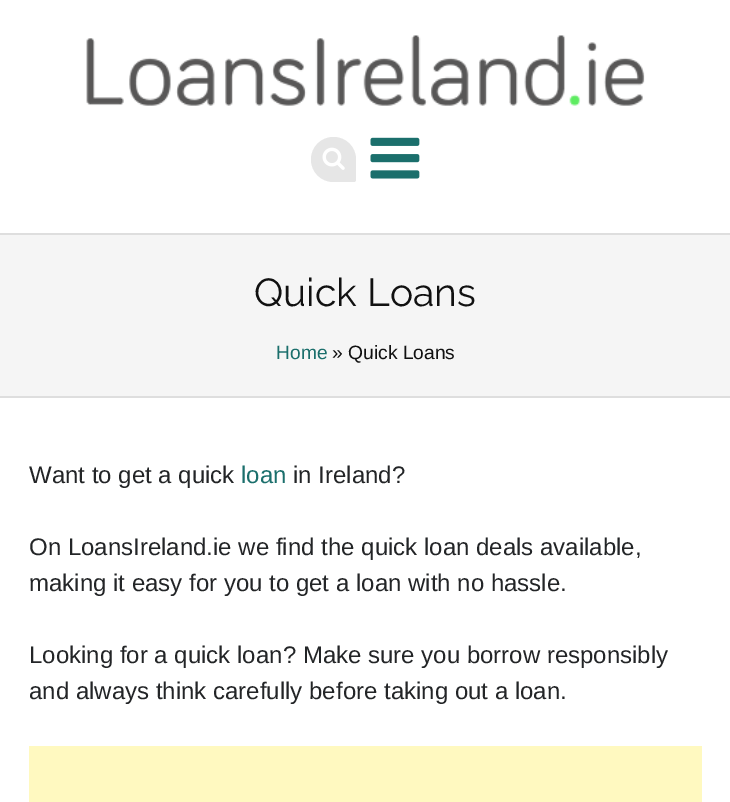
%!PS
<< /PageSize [730 802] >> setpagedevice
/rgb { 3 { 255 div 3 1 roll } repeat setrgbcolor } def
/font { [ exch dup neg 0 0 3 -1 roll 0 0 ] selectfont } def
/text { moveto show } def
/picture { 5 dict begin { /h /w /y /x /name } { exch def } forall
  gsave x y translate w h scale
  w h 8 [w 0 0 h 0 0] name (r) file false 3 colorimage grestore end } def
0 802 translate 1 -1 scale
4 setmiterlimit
255 255 255 rgb
0 0 730 802 rectfill
(img_01.rgb) 86 35 559 71 picture
230 230 230 rgb
333.5 137 moveto 12.5 0 22.5 10 22.5 22.5 rcurveto 0 20.5 rlineto 0 1 -1 2 -2 2 rcurveto -20.5 0 rlineto -12.5 0 -22.5 -10 -22.5 -22.5 rcurveto 0 -12.5 10 -22.5 22.5 -22.5 rcurveto closepath fill
(img_02.rgb) 322 147 23 23 picture
(img_03.rgb) 370 137 50 42 picture
245 245 245 rgb
0 235 730 161 rectfill
222 222 222 rgb
0 233 730 2 rectfill
0 396 730 2 rectfill
255 249 192 rgb
29 746 673 56 rectfill
/Raleway-Regular 39 font
17 17 17 rgb
(Quick Loans) 254 306 text
/LiberationSans-Regular 19.25 font
27 111 108 rgb
(Home) 276 359 text
17 17 17 rgb
(» Quick Loans) 332 359 text
/LiberationSans-Regular 24 font
35 37 39 rgb
(Want to get a quick) 29 483 text
27 111 108 rgb
(loan) 241 483 text
35 37 39 rgb
(in Ireland?) 293 483 text
(On LoansIreland.ie we find the quick loan deals available,) 29 555 text
(making it easy for you to get a loan with no hassle.) 29 591 text
(Looking for a quick loan? Make sure you borrow responsibly) 29 663 text
(and always think carefully before taking out a loan.) 29 699 text
showpage
